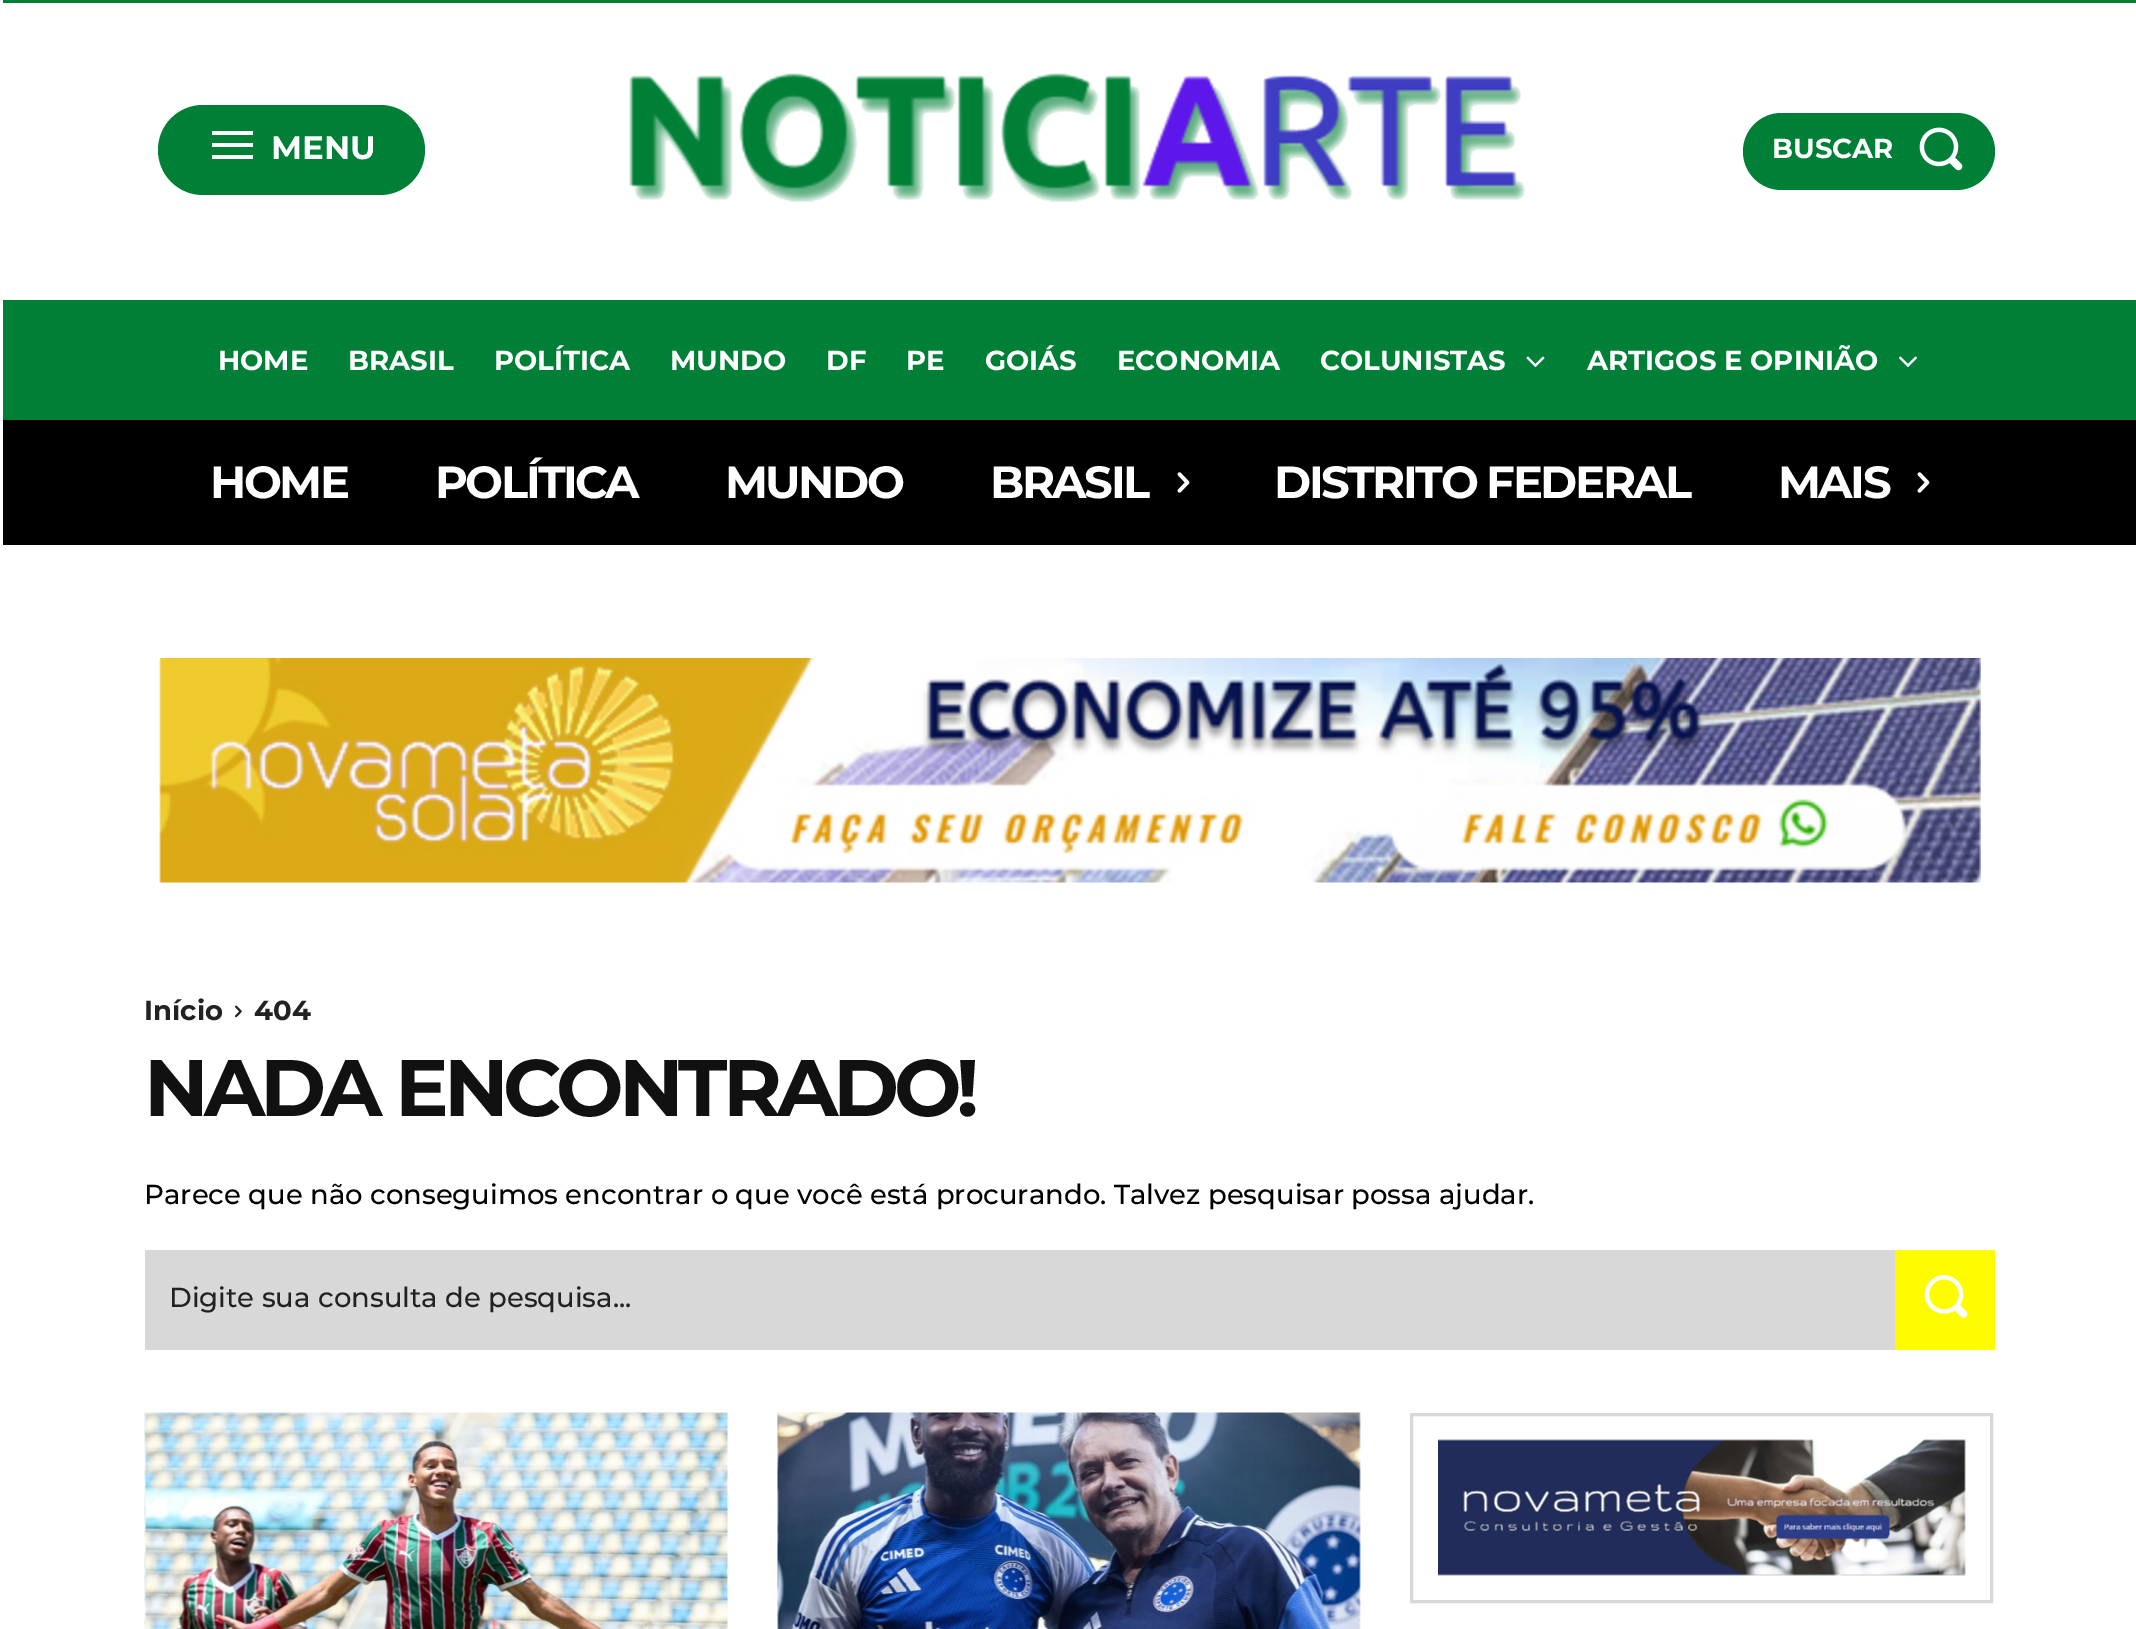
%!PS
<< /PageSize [2136 1629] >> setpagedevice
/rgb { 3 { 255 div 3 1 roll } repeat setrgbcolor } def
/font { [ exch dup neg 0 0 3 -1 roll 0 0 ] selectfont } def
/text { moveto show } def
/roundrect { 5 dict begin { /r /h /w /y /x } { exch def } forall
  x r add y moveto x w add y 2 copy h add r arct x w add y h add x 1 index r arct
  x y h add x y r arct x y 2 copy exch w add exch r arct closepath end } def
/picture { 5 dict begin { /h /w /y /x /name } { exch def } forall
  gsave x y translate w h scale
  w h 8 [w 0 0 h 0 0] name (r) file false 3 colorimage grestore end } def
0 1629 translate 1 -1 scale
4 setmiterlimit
255 255 255 rgb
0 0 2136 1629 rectfill
0 128 55 rgb
3 0 2133 3 rectfill
158 105 267 90 45 roundrect fill
255 255 255 rgb
253 135 moveto -41 0 rlineto 0 -4 rlineto 41 0 rlineto closepath 253 147 moveto -41 0 rlineto 0 -4 rlineto 41 0 rlineto closepath 253 159 moveto -41 0 rlineto 0 -4 rlineto 41 0 rlineto closepath fill
(img_01.rgb) 629 73 897 129 picture
0 128 55 rgb
1743 113 252 77 38.5 roundrect fill
(img_02.rgb) 1919 127 44 44 picture
3 300 2133 120 rectfill
(img_03.rgb) 1526 356 19 11 picture
(img_04.rgb) 1899 356 18 11 picture
0 0 0 rgb
3 420 2133 125 rectfill
(img_05.rgb) 1177 472 13 21 picture
(img_05.rgb) 1917 472 13 21 picture
(img_06.rgb) 159 658 1822 225 picture
(img_07.rgb) 235 1005 7 13 picture
216 216 216 rgb
145 1250 1750 100 rectfill
255 252 0 rgb
1895 1250 100 100 rectfill
(img_08.rgb) 1924 1275 44 43 picture
(img_09.rgb) 144 1412 584 217 picture
(img_10.rgb) 777 1412 584 217 picture
216 216 216 rgb
3 setlinewidth
1411.5 1414.5 580 187 rectstroke
(img_11.rgb) 1438 1439 528 137 picture
/Montserrat-Bold 32.5 font
255 255 255 rgb
(MENU) 271 159 text
/Montserrat-Bold 27.5 font
(BUSCAR) 1772 158 text
(HOME) 218 370 text
(BRASIL) 348 370 text
(POLÍTICA) 494 370 text
(MUNDO) 670 370 text
(DF) 826 370 text
(PE) 906 370 text
(GOIÁS) 985 370 text
(ECONOMIA) 1117 370 text
(COLUNISTAS) 1320 370 text
(ARTIGOS E OPINIÃO) 1587 370 text
/Montserrat-Bold 45 font
210 498 moveto -2.5 0 (HOME) ashow
435 498 moveto -2.5 0 (POLÍTICA) ashow
725 498 moveto -2.5 0 (MUNDO) ashow
990 498 moveto -2.5 0 (BRASIL) ashow
1274 498 moveto -2.5 0 (DISTRITO FEDERAL) ashow
1778 498 moveto -2.5 0 (MAIS) ashow
/Montserrat-Bold 27.5 font
34 34 34 rgb
(Início) 144 1020 text
(404) 254 1020 text
/Montserrat-Bold 80 font
17 17 17 rgb
144 1116 moveto -5 0 (NADA ENCONTRADO!) ashow
/Montserrat-Medium 27.5 font
0 0 0 rgb
(Parece que não conseguimos encontrar o que você está procurando. Talvez pesquisar possa ajudar.) 144 1204 text
34 34 34 rgb
(Digite sua consulta de pesquisa...) 169 1307 text
showpage
